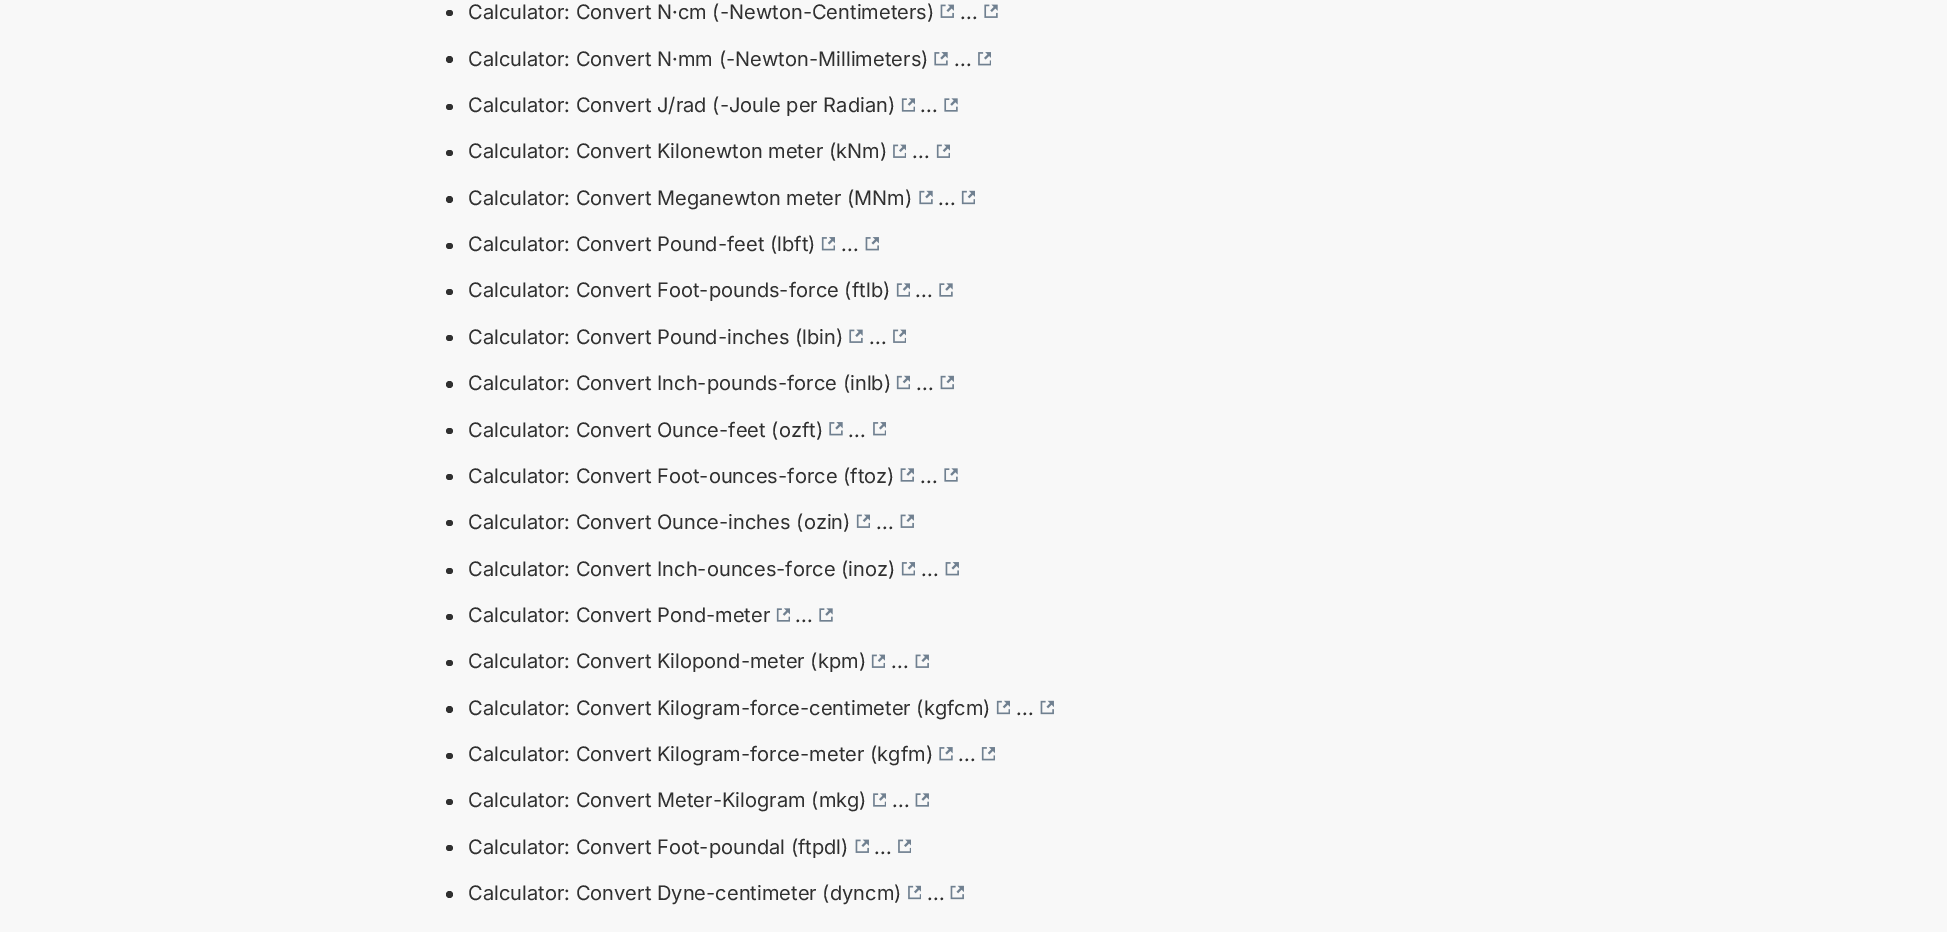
%!PS
<< /PageSize [1947 932] >> setpagedevice
/rgb { 3 { 255 div 3 1 roll } repeat setrgbcolor } def
/font { [ exch dup neg 0 0 3 -1 roll 0 0 ] selectfont } def
/text { moveto show } def
/circle { newpath 0 360 arc closepath } def
/roundrect { 5 dict begin { /r /h /w /y /x } { exch def } forall
  x r add y moveto x w add y 2 copy h add r arct x w add y h add x 1 index r arct
  x y h add x y r arct x y 2 copy exch w add exch r arct closepath end } def
/picture { 5 dict begin { /h /w /y /x /name } { exch def } forall
  gsave x y translate w h scale
  w h 8 [w 0 0 h 0 0] name (r) file false 3 colorimage grestore end } def
0 932 translate 1 -1 scale
4 setmiterlimit
248 248 248 rgb
0 0 1947 932 rectfill
48 48 48 rgb
446 10 7 6 3 roundrect fill
(img_01.rgb) 940 4 14 14 picture
(img_02.rgb) 984 4 14 14 picture
449.5 59.5 3.5 circle fill
(img_03.rgb) 934 52 14 14 picture
(img_04.rgb) 978 52 13 14 picture
446 104 7 6 3 roundrect fill
(img_05.rgb) 901 98 14 14 picture
(img_06.rgb) 944 98 14 14 picture
446 150 7 6 3 roundrect fill
(img_07.rgb) 893 144 13 14 picture
(img_08.rgb) 936 144 14 14 picture
449.5 199.5 3.5 circle fill
(img_09.rgb) 919 190 14 15 picture
(img_10.rgb) 961 190 14 15 picture
446 243 7 6 3 roundrect fill
(img_11.rgb) 821 237 14 14 picture
(img_12.rgb) 865 237 14 14 picture
446 289 7 6 3 roundrect fill
(img_05.rgb) 896 283 14 14 picture
(img_06.rgb) 939 283 14 14 picture
446 335 7 6 3 roundrect fill
(img_02.rgb) 849 329 14 14 picture
(img_07.rgb) 893 329 13 14 picture
449.5 384.5 3.5 circle fill
(img_10.rgb) 896 375 14 15 picture
(img_13.rgb) 940 375 14 15 picture
446 428 7 6 3 roundrect fill
(img_03.rgb) 829 422 14 14 picture
(img_04.rgb) 873 422 13 14 picture
446 474 7 6 3 roundrect fill
(img_14.rgb) 900 468 14 14 picture
(img_06.rgb) 944 468 14 14 picture
446 520 7 6 3 roundrect fill
(img_08.rgb) 856 514 14 14 picture
(img_01.rgb) 900 514 14 14 picture
446 568 7 6 3 roundrect fill
(img_11.rgb) 901 562 14 14 picture
(img_12.rgb) 945 562 14 14 picture
446 614 7 6 3 roundrect fill
(img_05.rgb) 776 608 14 14 picture
(img_06.rgb) 819 608 14 14 picture
446 660 7 6 3 roundrect fill
(img_08.rgb) 871 654 14 14 picture
(img_01.rgb) 915 654 14 14 picture
449.5 709.5 3.5 circle fill
(img_10.rgb) 996 700 14 15 picture
(img_13.rgb) 1040 700 14 15 picture
446 753 7 6 3 roundrect fill
(img_03.rgb) 939 747 14 14 picture
(img_11.rgb) 981 747 14 14 picture
446 799 7 6 3 roundrect fill
(img_15.rgb) 873 793 13 14 picture
(img_14.rgb) 915 793 14 14 picture
446 845 7 6 3 roundrect fill
(img_01.rgb) 855 839 14 14 picture
(img_07.rgb) 898 839 13 14 picture
449.5 894.5 3.5 circle fill
(img_16.rgb) 908 885 13 15 picture
(img_13.rgb) 950 885 14 15 picture
/Inter-Regular 20.05 font
(Calculator: Convert N·cm \(-Newton-Centimeters\)) 468 19 text
(...) 960 19 text
(Calculator: Convert N·mm \(-Newton-Millimeters\)) 468 66 text
(...) 954 66 text
(Calculator: Convert J/rad \(-Joule per Radian\)) 468 112 text
(...) 920 112 text
(Calculator: Convert Kilonewton meter \(kNm\)) 468 158 text
(...) 912 158 text
(Calculator: Convert Meganewton meter \(MNm\)) 468 205 text
(...) 938 205 text
(Calculator: Convert Pound-feet \(lbft\)) 468 251 text
(...) 841 251 text
(Calculator: Convert Foot-pounds-force \(ftlb\)) 468 297 text
(...) 915 297 text
(Calculator: Convert Pound-inches \(lbin\)) 468 344 text
(...) 869 344 text
(Calculator: Convert Inch-pounds-force \(inlb\)) 468 390 text
(...) 916 390 text
(Calculator: Convert Ounce-feet \(ozft\)) 468 437 text
(...) 848 437 text
(Calculator: Convert Foot-ounces-force \(ftoz\)) 468 483 text
(...) 920 483 text
(Calculator: Convert Ounce-inches \(ozin\)) 468 529 text
(...) 876 529 text
(Calculator: Convert Inch-ounces-force \(inoz\)) 468 576 text
(...) 921 576 text
(Calculator: Convert Pond-meter) 468 622 text
(...) 795 622 text
(Calculator: Convert Kilopond-meter \(kpm\)) 468 668 text
(...) 891 668 text
(Calculator: Convert Kilogram-force-centimeter \(kgfcm\)) 468 715 text
(...) 1016 715 text
(Calculator: Convert Kilogram-force-meter \(kgfm\)) 468 761 text
(...) 958 761 text
(Calculator: Convert Meter-Kilogram \(mkg\)) 468 807 text
(...) 892 807 text
(Calculator: Convert Foot-poundal \(ftpdl\)) 468 854 text
(...) 874 854 text
(Calculator: Convert Dyne-centimeter \(dyncm\)) 468 900 text
(...) 927 900 text
showpage
